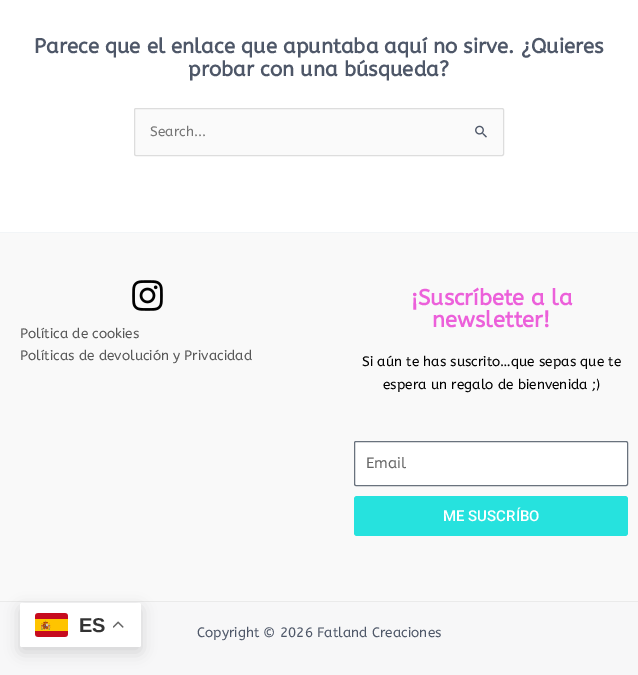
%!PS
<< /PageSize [638 675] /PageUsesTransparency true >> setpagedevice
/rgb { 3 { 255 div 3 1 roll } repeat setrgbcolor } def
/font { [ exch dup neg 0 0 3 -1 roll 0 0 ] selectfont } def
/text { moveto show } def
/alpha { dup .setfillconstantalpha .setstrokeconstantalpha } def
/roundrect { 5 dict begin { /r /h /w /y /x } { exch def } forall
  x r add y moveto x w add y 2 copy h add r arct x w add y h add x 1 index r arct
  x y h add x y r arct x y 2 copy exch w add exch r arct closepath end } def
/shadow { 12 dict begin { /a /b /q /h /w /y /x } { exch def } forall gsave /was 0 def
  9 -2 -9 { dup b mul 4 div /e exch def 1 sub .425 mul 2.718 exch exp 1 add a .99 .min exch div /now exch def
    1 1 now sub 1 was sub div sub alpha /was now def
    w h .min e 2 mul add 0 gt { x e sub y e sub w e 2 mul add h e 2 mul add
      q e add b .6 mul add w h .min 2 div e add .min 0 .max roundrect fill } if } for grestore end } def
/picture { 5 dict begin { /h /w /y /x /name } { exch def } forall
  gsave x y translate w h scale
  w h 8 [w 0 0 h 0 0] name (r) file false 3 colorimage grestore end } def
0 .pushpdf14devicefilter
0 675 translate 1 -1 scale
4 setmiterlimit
255 255 255 rgb
0 0 638 675 rectfill
250 250 250 rgb
134.5 108.5 369 47 1.5 roundrect gsave fill grestore
221 221 221 rgb
stroke
(img_01.rgb) 475 125 12 13 picture
249 249 249 rgb
0 233 638 368 rectfill
242 245 247 rgb
0 232 638 1 rectfill
(img_02.rgb) 132 280 31 31 picture
255 255 255 rgb
354.5 441.5 273 44 1.5 roundrect gsave fill grestore
105 114 125 rgb
stroke
38 226 222 rgb
354 496 274 40 3 roundrect fill
247 247 248 rgb
0 602 638 73 rectfill
234 234 234 rgb
0 601 638 1 rectfill
0 0 0 rgb
20 608 121 44 2 7.5 0.15 shadow
255 255 255 rgb
20 603 121 44 2 roundrect fill
(img_03.rgb) 35 613 33 24 picture
(img_04.rgb) 113 621 11 7 picture
/ABeeZee-Bold 20.5 font
78 87 104 rgb
(Parece que el enlace que apuntaba aquí no sirve. ¿Quieres) 34 53 text
(probar con una búsqueda?) 188 76 text
/ABeeZee-Regular 13.7 font
117 117 117 rgb
(Search...) 150 136 text
87 87 87 rgb
(Política de cookies) 20 338 text
(Políticas de devolución y Privacidad) 20 360 text
/ABeeZee-Bold 22 font
236 96 218 rgb
(¡Suscríbete a la) 411 305 text
(newsletter!) 432 327 text
/ABeeZee-Regular 13.7 font
0 0 0 rgb
(Si aún te has suscrito…que sepas que te) 362 366 text
(espera un regalo de bienvenida ;\)) 383 389 text
/ABeeZee-Regular 15 font
102 102 102 rgb
(Email) 366 468 text
/Roboto-Medium 15 font
255 255 255 rgb
(ME SUSCRÍBO) 443 521 text
/ABeeZee-Regular 13.7 font
78 87 104 rgb
(Copyright © 2026 Fatland Creaciones) 197 637 text
/LiberationSans-Bold 20 font
51 51 51 rgb
(ES) 79 632 text
.poppdf14devicefilter showpage
